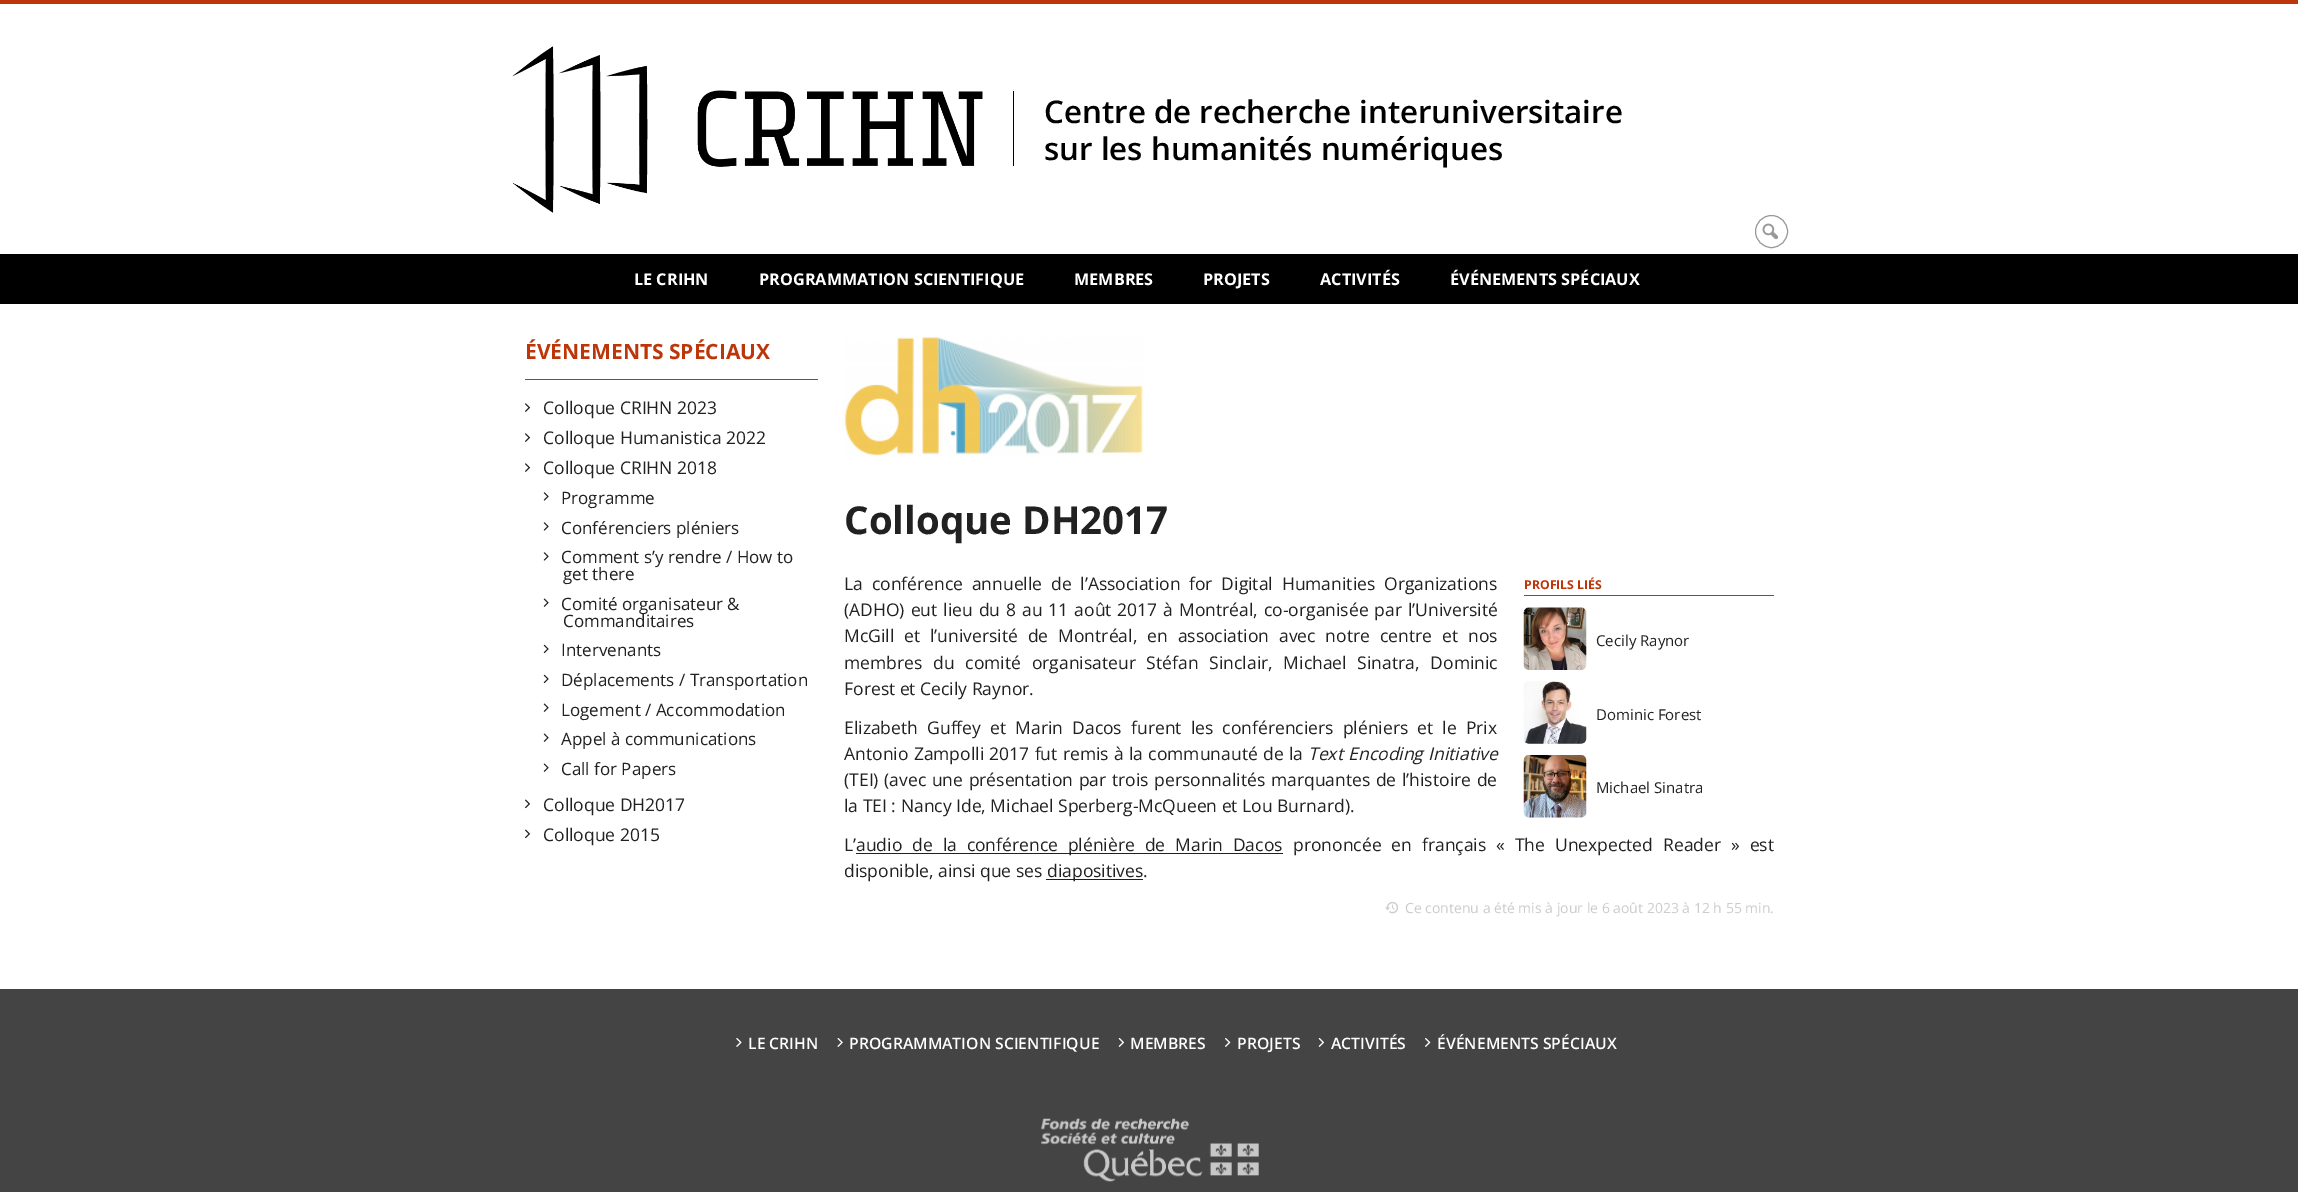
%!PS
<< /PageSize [2298 1192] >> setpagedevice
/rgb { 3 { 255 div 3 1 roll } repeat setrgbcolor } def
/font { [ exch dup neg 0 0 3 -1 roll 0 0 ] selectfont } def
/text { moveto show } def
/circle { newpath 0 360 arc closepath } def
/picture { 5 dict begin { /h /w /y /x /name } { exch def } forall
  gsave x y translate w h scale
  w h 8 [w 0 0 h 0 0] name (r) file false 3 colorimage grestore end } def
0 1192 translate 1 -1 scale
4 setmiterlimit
255 255 255 rgb
0 0 2298 1192 rectfill
188 54 10 rgb
0 0 2298 4 rectfill
(img_01.rgb) 512 46 471 167 picture
0 0 0 rgb
1013 91 1 75 rectfill
153 153 153 rgb
1771.5 231.5 16 circle stroke
(img_02.rgb) 1762 223 17 17 picture
0 0 0 rgb
0 254 2298 50 rectfill
188 54 10 rgb
525 379 293 1 rectfill
(img_03.rgb) 525 403 6 9 picture
(img_03.rgb) 525 433 6 9 picture
(img_03.rgb) 525 463 6 9 picture
(img_04.rgb) 543 492 6 9 picture
(img_04.rgb) 543 522 6 9 picture
(img_04.rgb) 543 552 6 9 picture
(img_05.rgb) 543 598 6 9 picture
(img_06.rgb) 543 644 6 10 picture
(img_06.rgb) 543 674 6 10 picture
(img_05.rgb) 543 703 6 9 picture
(img_05.rgb) 543 733 6 9 picture
(img_05.rgb) 543 763 6 9 picture
(img_07.rgb) 525 799 6 10 picture
(img_07.rgb) 525 829 6 10 picture
(img_08.rgb) 844 337 299 119 picture
1524 595 250 1 rectfill
(img_09.rgb) 1523 607 64 63 picture
(img_10.rgb) 1523 681 64 63 picture
(img_11.rgb) 1523 755 64 63 picture
33 33 33 rgb
856 853 427 1 rectfill
1046 879 97 1 rectfill
(img_12.rgb) 1385 901 14 13 picture
68 68 68 rgb
0 989 2298 203 rectfill
(img_13.rgb) 736 1038 6 9 picture
(img_14.rgb) 837 1038 6 9 picture
(img_15.rgb) 1118 1038 7 9 picture
(img_16.rgb) 1225 1038 6 9 picture
(img_15.rgb) 1318 1038 7 9 picture
(img_16.rgb) 1425 1038 6 9 picture
(img_17.rgb) 1041 1118 218 64 picture
/OpenSans-SemiBold 31.25 font
0 0 0 rgb
(Centre de recherche interuniversitaire) 1044 123 text
(sur les humanités numériques) 1044 160 text
/OpenSans-Bold 16.25 font
255 255 255 rgb
(LE CRIHN) 634 285 text
(PROGRAMMATION SCIENTIFIQUE) 759 285 text
(MEMBRES) 1074 285 text
(PROJETS) 1203 285 text
(ACTIVITÉS) 1320 285 text
(ÉVÉNEMENTS SPÉCIAUX) 1450 285 text
/OpenSans-Bold 21 font
188 54 10 rgb
(ÉVÉNEMENTS SPÉCIAUX) 525 359 text
/OpenSans-Regular 17.5 font
33 33 33 rgb
(Colloque CRIHN 2023) 543 414 text
(Colloque Humanistica 2022) 543 444 text
(Colloque CRIHN 2018) 543 474 text
/OpenSans-Regular 17 font
(Programme) 561 504 text
(Conférenciers pléniers) 561 534 text
(Comment s’y rendre / How to) 561 563 text
(get there) 563 580 text
(Comité organisateur &) 561 610 text
(Commanditaires) 563 627 text
(Intervenants) 561 656 text
(Déplacements / Transportation) 561 686 text
(Logement / Accommodation) 561 716 text
(Appel à communications) 561 745 text
(Call for Papers) 561 775 text
/OpenSans-Regular 17.5 font
(Colloque DH2017) 543 811 text
(Colloque 2015) 543 841 text
/OpenSans-Bold 38.5 font
(Colloque DH2017) 844 534 text
/OpenSans-Regular 17.5 font
844 590 moveto 4.25 0 32 (La conférence annuelle de l’Association for Digital Humanities Organizations) widthshow
844 616 moveto 1.4 0 32 (\(ADHO\) eut lieu du 8 au 11 août 2017 à Montréal, co-organisée par l’Université) widthshow
844 642 moveto 5.4 0 32 (McGill et l’université de Montréal, en association avec notre centre et nos) widthshow
844 669 moveto 6.25 0 32 (membres du comité organisateur Stéfan Sinclair, Michael Sinatra, Dominic) widthshow
(Forest et Cecily Raynor.) 844 695 text
/OpenSans-Bold 12.25 font
188 54 10 rgb
(PROFILS LIÉS) 1524 589 text
/OpenSans-Regular 15 font
33 33 33 rgb
(Cecily Raynor) 1596 646 text
(Dominic Forest) 1596 720 text
(Michael Sinatra) 1596 793 text
/OpenSans-Regular 17.5 font
844 734 moveto 4.6 0 32 (Elizabeth Guffey et Marin Dacos furent les conférenciers pléniers et le Prix) widthshow
844 760 moveto 0.75 0 32 (Antonio Zampolli 2017 fut remis à la communauté de la) widthshow
/OpenSans-Italic 17.5 font
1308 760 moveto 0.75 0 32 (Text Encoding Initiative) widthshow
/OpenSans-Regular 17.5 font
844 786 moveto 1.1 0 32 (\(TEI\) \(avec une présentation par trois personnalités marquantes de l’histoire de) widthshow
(la TEI : Nancy Ide, Michael Sperberg-McQueen et Lou Burnard\).) 844 812 text
(L’) 844 851 text
856 851 moveto 5.4 0 32 (audio de la conférence plénière de Marin Dacos) widthshow
1293 851 moveto 5.4 0 32 (prononcée en français « The Unexpected Reader » est) widthshow
(disponible, ainsi que ses) 844 877 text
(diapositives.) 1047 877 text
/OpenSans-Regular 14 font
204 204 204 rgb
(Ce contenu a été mis à jour le 6 août 2023 à 12 h 55 min.) 1405 913 text
/OpenSans-SemiBold 15.75 font
255 255 255 rgb
(LE CRIHN) 748 1049 text
(PROGRAMMATION SCIENTIFIQUE) 849 1049 text
(MEMBRES) 1130 1049 text
(PROJETS) 1237 1049 text
(ACTIVITÉS) 1331 1049 text
(ÉVÉNEMENTS SPÉCIAUX) 1437 1049 text
showpage
